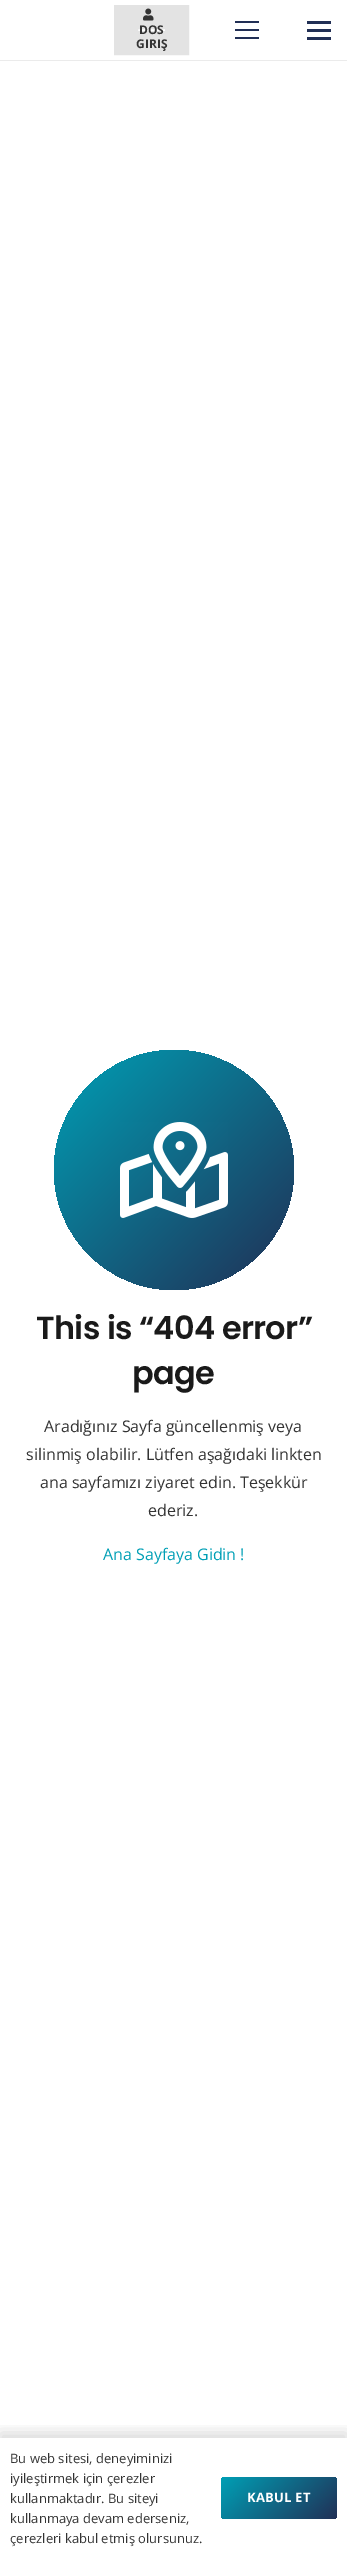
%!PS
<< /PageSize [347 2558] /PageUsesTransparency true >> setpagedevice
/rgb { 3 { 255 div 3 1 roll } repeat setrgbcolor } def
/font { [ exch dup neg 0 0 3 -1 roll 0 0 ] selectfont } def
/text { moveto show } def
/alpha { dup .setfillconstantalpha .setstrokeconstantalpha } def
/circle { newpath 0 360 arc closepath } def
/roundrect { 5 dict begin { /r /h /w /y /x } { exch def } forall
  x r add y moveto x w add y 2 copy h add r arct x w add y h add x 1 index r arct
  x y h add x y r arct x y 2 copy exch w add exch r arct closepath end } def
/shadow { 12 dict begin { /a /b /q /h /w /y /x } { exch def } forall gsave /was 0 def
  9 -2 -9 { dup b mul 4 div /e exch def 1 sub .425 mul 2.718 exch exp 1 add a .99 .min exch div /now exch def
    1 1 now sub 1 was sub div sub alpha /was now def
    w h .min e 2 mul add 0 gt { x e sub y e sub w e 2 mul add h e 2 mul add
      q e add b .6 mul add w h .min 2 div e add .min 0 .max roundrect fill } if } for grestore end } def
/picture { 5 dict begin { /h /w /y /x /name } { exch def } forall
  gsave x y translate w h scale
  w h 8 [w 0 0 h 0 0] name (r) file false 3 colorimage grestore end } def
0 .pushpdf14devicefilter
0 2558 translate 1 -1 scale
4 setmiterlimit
255 255 255 rgb
0 0 347 2558 rectfill
235 235 235 rgb
0 60 347 1 rectfill
227 227 227 rgb
24 setlinewidth
126 17 moveto 51 0 rlineto 0 26 rlineto -51 0 rlineto closepath stroke
(img_01.rgb) 143 8 11 13 picture
33 47 85 rgb
235 29 24 2 rectfill
235 21 24 2 rectfill
235 37 24 2 rectfill
307 29 24 3 rectfill
307 21 24 3 rectfill
307 37 24 3 rectfill
gsave 174 1170 120 circle clip newpath
<< /ShadingType 2 /ColorSpace /DeviceRGB /Coords [54 1050 294 1290] /Extend [true true] /Function << /FunctionType 2 /Domain [0 1] /C0 [0 0.624 0.71] /C1 [0.129 0.184 0.333] /N 1 >> >> shfill grestore
(img_02.rgb) 120 1122 108 96 picture
gsave
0 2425 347 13 rectclip
0 0 0 rgb
0 2433 347 120 0 7.5 0.15 shadow
grestore
gsave 221 2477 116 42 4 roundrect clip newpath
<< /ShadingType 2 /ColorSpace /DeviceRGB /Coords [240 2459 319 2538] /Extend [true true] /Function << /FunctionType 2 /Domain [0 1] /C0 [0 0.624 0.71] /C1 [0.129 0.184 0.333] /N 1 >> >> shfill grestore
/OpenSans-Bold 12 font
51 51 51 rgb
(DOS) 139 34 text
(GIRIŞ) 136 48 text
/Poppins-SemiBold 32 font
26 26 26 rgb
36 1339 moveto -0.6 0 (This is “404 error”) ashow
132 1384 moveto -0.6 0 (page) ashow
/OpenSans-Regular 16 font
51 51 51 rgb
(Aradığınız Sayfa güncellenmiş veya) 44 1432 text
(silinmiş olabilir. Lütfen aşağıdaki linkten) 26 1460 text
(ana sayfamızı ziyaret edin. Teşekkür) 40 1488 text
(ederiz.) 148 1516 text
0 159 181 rgb
(Ana Sayfaya Gidin !) 103 1560 text
/OpenSans-Regular 13 font
51 51 51 rgb
(Bu web sitesi, deneyiminizi) 10 2463 text
(iyileştirmek için çerezler) 10 2483 text
(kullanmaktadır. Bu siteyi) 10 2503 text
(kullanmaya devam ederseniz,) 10 2523 text
(çerezleri kabul etmiş olursunuz.) 10 2543 text
/OpenSans-Bold 13 font
255 255 255 rgb
247 2502 moveto 0.25 0 (KABUL ET) ashow
.poppdf14devicefilter showpage
